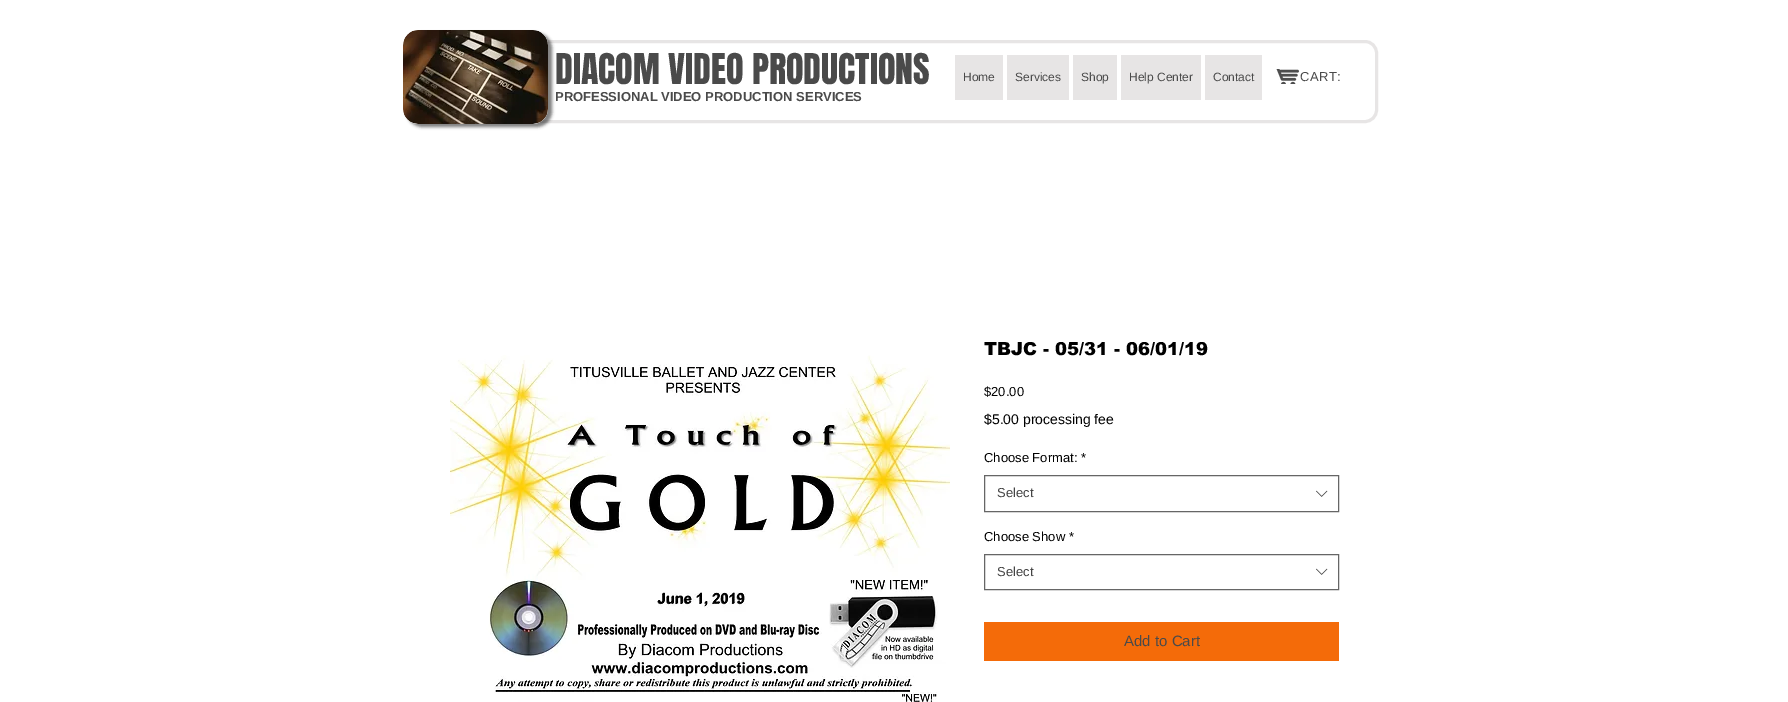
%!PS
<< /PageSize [1788 702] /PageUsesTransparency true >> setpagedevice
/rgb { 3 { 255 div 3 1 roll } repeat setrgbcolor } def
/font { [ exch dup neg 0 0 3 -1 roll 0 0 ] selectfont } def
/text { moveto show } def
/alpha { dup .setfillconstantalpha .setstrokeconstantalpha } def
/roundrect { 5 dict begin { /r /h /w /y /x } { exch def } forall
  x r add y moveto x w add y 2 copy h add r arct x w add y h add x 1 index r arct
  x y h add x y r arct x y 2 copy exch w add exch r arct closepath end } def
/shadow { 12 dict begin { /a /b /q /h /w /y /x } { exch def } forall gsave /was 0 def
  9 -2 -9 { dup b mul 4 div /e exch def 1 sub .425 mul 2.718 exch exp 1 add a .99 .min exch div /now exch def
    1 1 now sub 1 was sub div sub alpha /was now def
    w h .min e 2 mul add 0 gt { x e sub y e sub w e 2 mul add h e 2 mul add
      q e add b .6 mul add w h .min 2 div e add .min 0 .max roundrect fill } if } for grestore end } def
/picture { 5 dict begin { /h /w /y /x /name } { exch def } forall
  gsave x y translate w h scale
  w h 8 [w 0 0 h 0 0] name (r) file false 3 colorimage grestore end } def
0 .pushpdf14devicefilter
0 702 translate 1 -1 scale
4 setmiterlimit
255 255 255 rgb
0 0 1788 702 rectfill
231 229 229 rgb
3 setlinewidth
409.5 41.5 967 80 11.5 roundrect stroke
0 0 0 rgb
407 33 145 94 15 1.5 0.5 shadow
(img_01.rgb) 403 30 145 94 picture
231 229 229 rgb
955 55 48 45 rectfill
1007 55 62 45 rectfill
1073 55 44 45 rectfill
1121 55 80 45 rectfill
1205 55 57 45 rectfill
(img_02.rgb) 1276 69 24 15 picture
(img_03.rgb) 450 355 500 347 picture
102 102 102 rgb
1 setlinewidth
984.5 475.5 354 36 rectstroke
(img_04.rgb) 1316 490 12 7 picture
984.5 554.5 354 35 rectstroke
(img_04.rgb) 1316 568 12 7 picture
244 107 9 rgb
984 622 355 39 rectfill
/Anton-Regular 36 font
74 74 74 rgb
(DIACOM VIDEO PRODUCTIONS) 555 84 text
/LiberationSans-Bold 13 font
(PROFESSIONAL VIDEO PRODUCTION SERVICES) 555 101 text
/LiberationSans-Regular 12 font
(Home) 963 81 text
(Services) 1015 81 text
(Shop) 1081 81 text
(Help Center) 1129 81 text
(Contact) 1213 81 text
/LiberationSans-Regular 13 font
1300 81 moveto 0.5 0 (CART:) ashow
/arial-Black 18 font
0 0 0 rgb
(TBJC - 05/31 - 06/01/19) 984 355 text
/LiberationSans-Regular 13 font
($20.00) 984 396 text
/LiberationSans-Regular 14 font
($5.00 processing fee) 984 424 text
/LiberationSans-Regular 13 font
(Choose Format:) 984 462 text
(*) 1081 462 text
68 68 68 rgb
(Select) 997 497 text
0 0 0 rgb
(Choose Show) 984 541 text
(*) 1069 541 text
68 68 68 rgb
(Select) 997 576 text
/LiberationSans-Regular 15 font
74 74 74 rgb
(Add to Cart) 1124 646 text
.poppdf14devicefilter showpage
